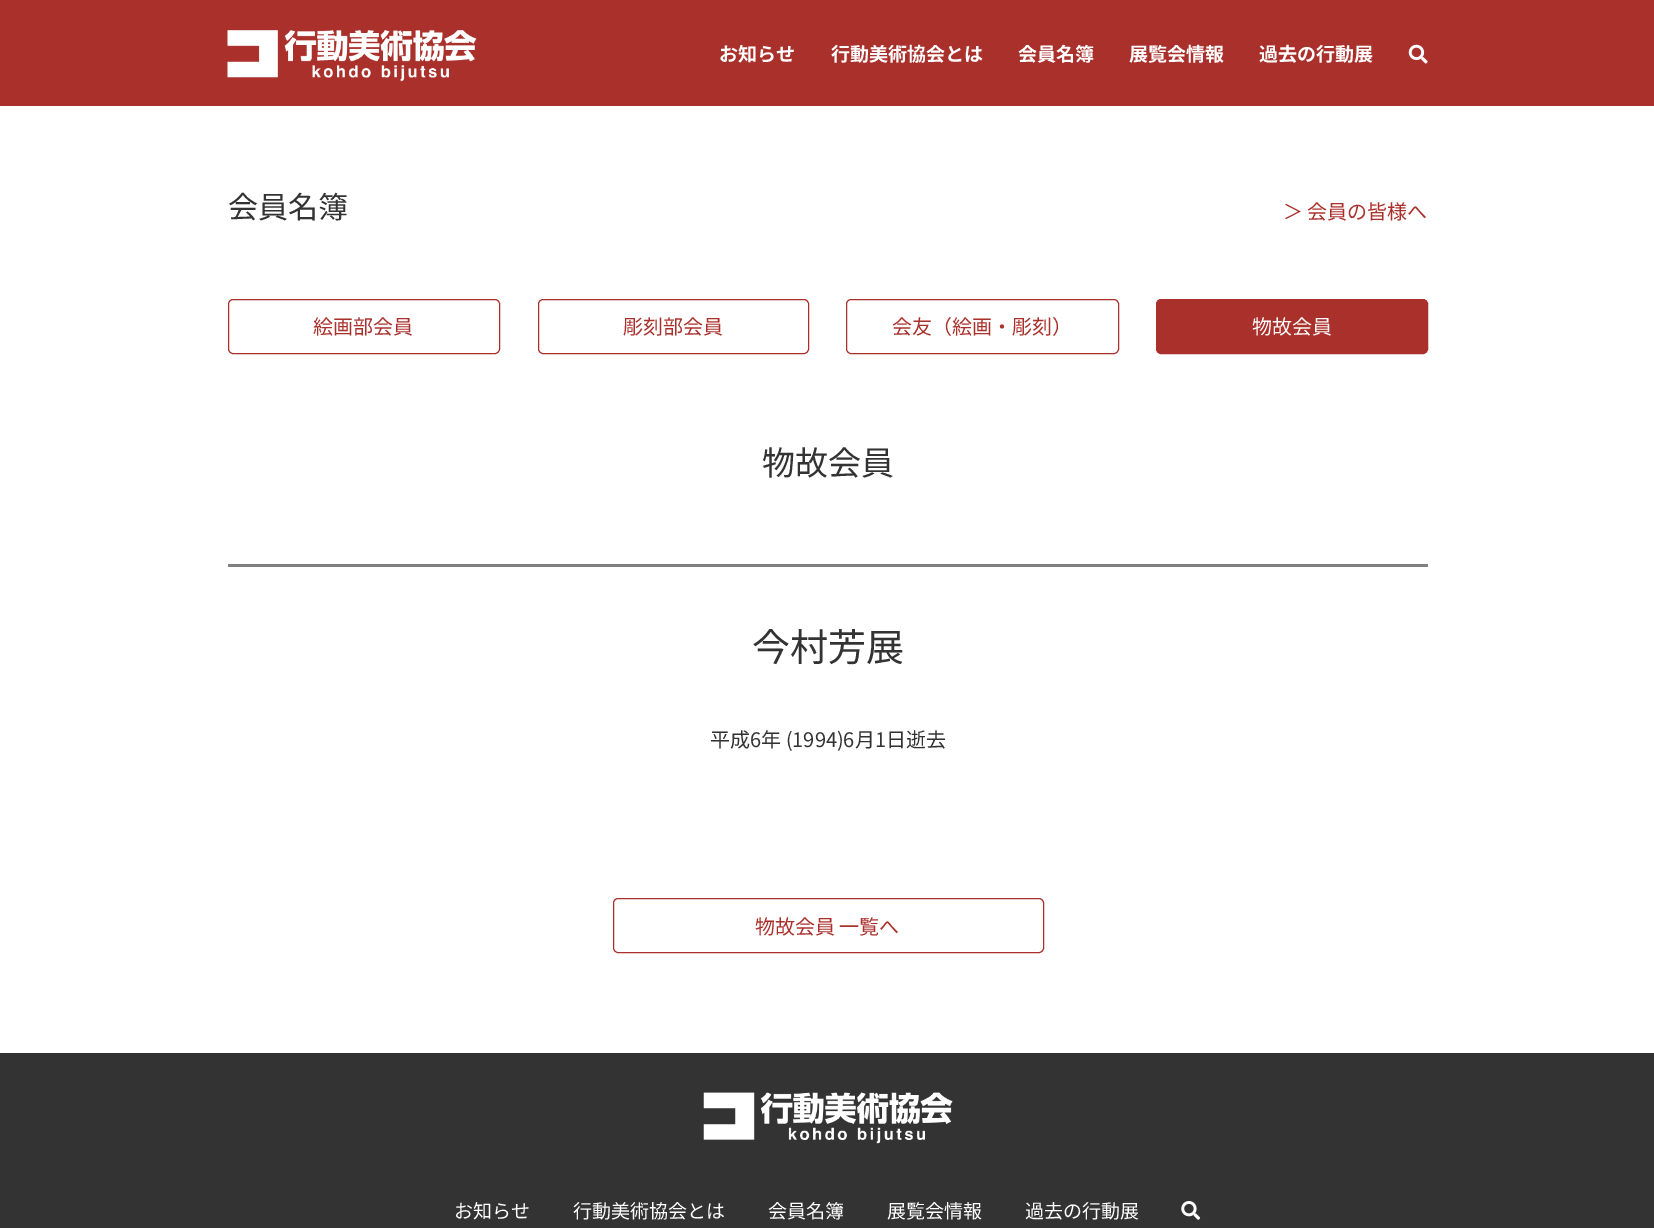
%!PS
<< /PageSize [1654 1228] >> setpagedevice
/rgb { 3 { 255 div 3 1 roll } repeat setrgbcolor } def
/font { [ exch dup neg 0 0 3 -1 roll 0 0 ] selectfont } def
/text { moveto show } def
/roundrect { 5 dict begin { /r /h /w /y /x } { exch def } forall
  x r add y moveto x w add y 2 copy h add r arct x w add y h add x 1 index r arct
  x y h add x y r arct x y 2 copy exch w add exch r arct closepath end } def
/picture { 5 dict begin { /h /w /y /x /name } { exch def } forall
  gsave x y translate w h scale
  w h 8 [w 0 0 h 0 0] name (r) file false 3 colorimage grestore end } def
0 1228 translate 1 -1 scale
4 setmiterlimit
51 51 51 rgb
0 0 1654 1228 rectfill
255 255 255 rgb
0 106 1654 947 rectfill
170 48 43 rgb
0 0 1654 106 rectfill
(img_01.rgb) 227 30 250 52 picture
(img_02.rgb) 1408 44 20 20 picture
228.5 299.5 271 54 4.5 roundrect stroke
538.5 299.5 270 54 4.5 roundrect stroke
846.5 299.5 272 54 4.5 roundrect stroke
1156.5 299.5 271 54 4.5 roundrect gsave fill grestore
stroke
128 128 128 rgb
228 564 1200 3 rectfill
170 48 43 rgb
613.5 898.5 430 54 4.5 roundrect stroke
(img_03.rgb) 703 1092 250 52 picture
(img_04.rgb) 1181 1201 20 19 picture
/NotoSansJP-Bold 19 font
255 255 255 rgb
(お知らせ) 719 61 text
(行動美術協会とは) 831 61 text
(会員名簿) 1018 61 text
(展覧会情報) 1129 61 text
(過去の行動展) 1259 61 text
/NotoSansJP-Regular 30 font
51 51 51 rgb
(会員名簿) 228 218 text
/NotoSansJP-Regular 20 font
170 48 43 rgb
(＞ 会員の皆様へ) 1283 219 text
(絵画部会員) 313 334 text
(彫刻部会員) 623 334 text
(会友（絵画・彫刻）) 892 334 text
255 255 255 rgb
(物故会員) 1252 334 text
/NotoSansJP-Regular 33 font
51 51 51 rgb
(物故会員) 762 475 text
/NotoSansJP-Regular 38 font
(今村芳展) 752 661 text
/NotoSansJP-Regular 20 font
(平成6年 \(1994\)6月1日逝去) 710 747 text
170 48 43 rgb
(物故会員 一覧へ) 755 934 text
/NotoSansJP-Regular 19 font
255 255 255 rgb
(お知らせ) 454 1218 text
(行動美術協会とは) 573 1218 text
(会員名簿) 768 1218 text
(展覧会情報) 887 1218 text
(過去の行動展) 1025 1218 text
showpage
